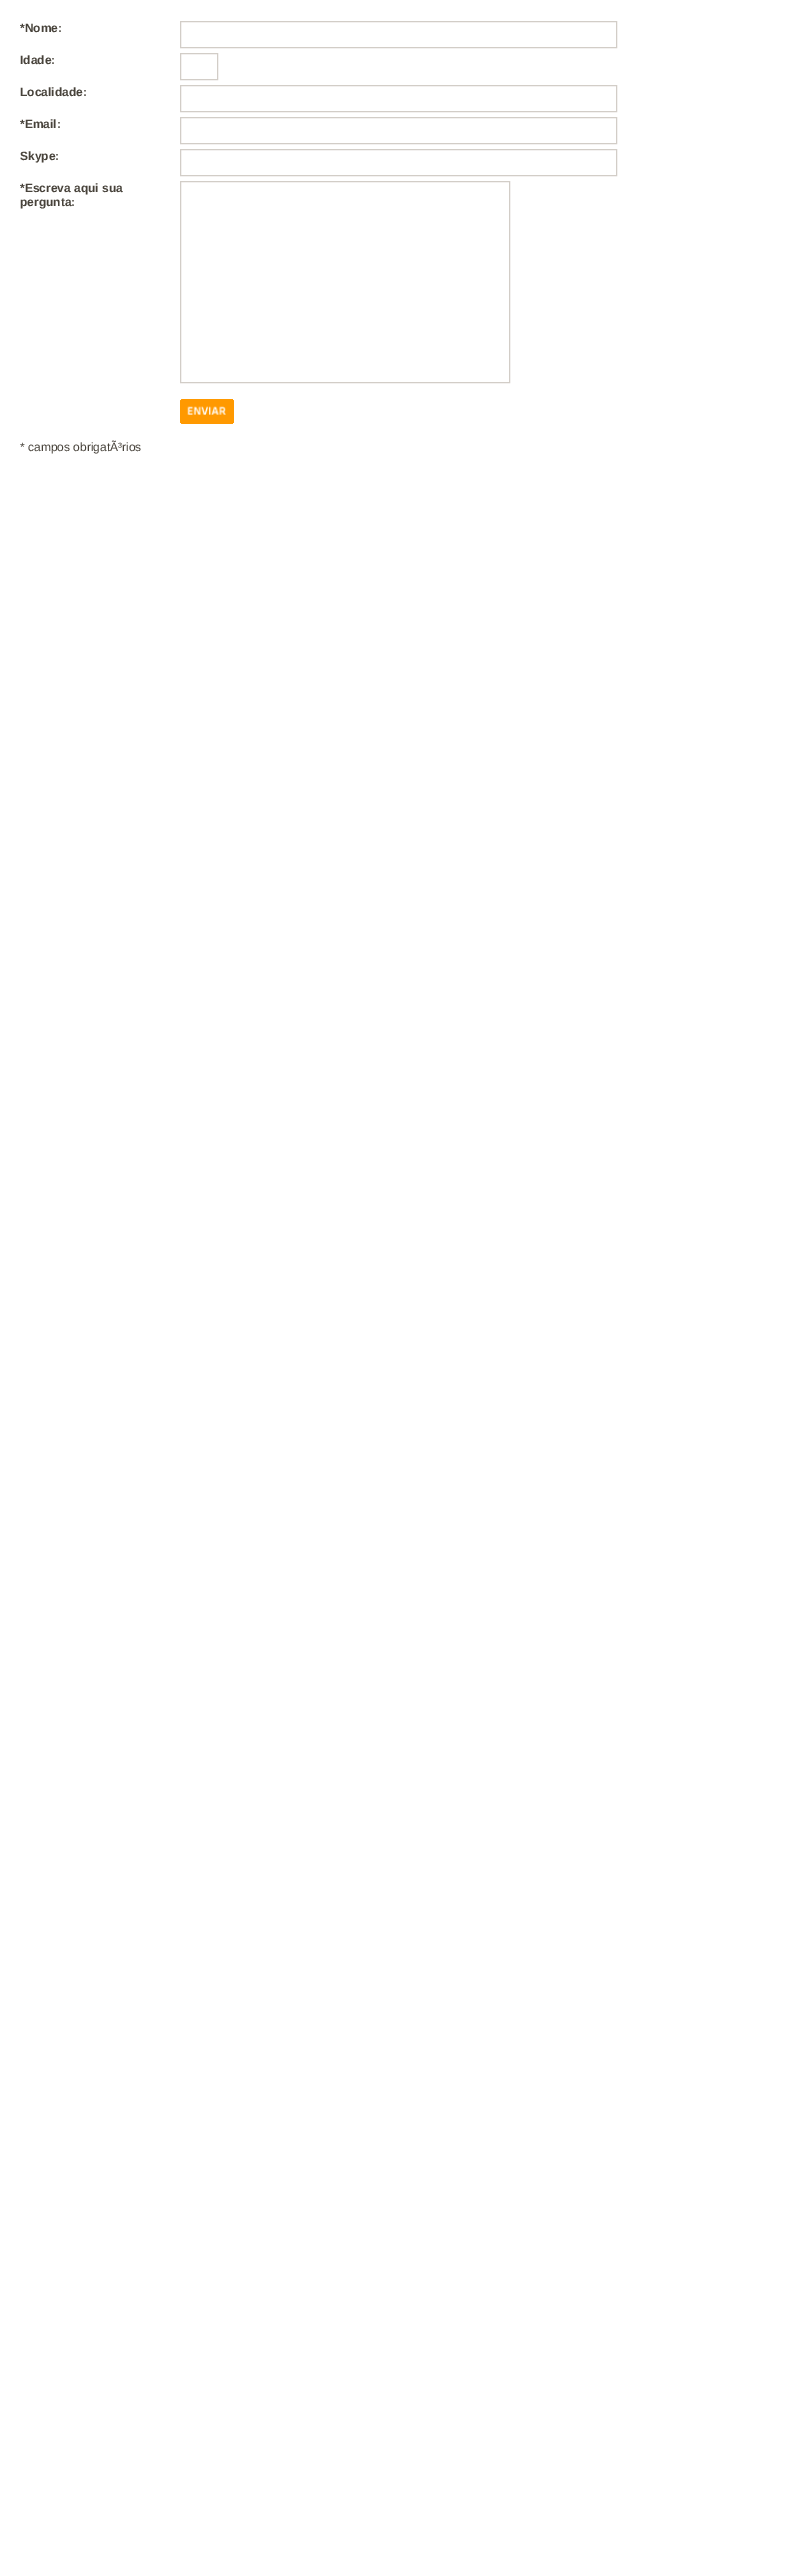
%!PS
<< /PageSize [794 2563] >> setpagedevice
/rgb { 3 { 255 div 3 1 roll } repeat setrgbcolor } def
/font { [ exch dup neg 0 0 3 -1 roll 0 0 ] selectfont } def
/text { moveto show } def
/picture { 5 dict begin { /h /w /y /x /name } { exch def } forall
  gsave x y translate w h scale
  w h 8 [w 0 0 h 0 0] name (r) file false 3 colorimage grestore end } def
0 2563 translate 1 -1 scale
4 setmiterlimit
255 255 255 rgb
0 0 794 2563 rectfill
210 205 199 rgb
180.5 21.5 436 26 rectstroke
180.5 53.5 37 26 rectstroke
180.5 85.5 436 26 rectstroke
180.5 117.5 436 26 rectstroke
180.5 149.5 436 26 rectstroke
180.5 181.5 329 201 rectstroke
(img_01.rgb) 180 399 54 25 picture
/LiberationSans-Bold 12 font
71 66 58 rgb
(*Nome:) 20 32 text
(Idade:) 20 64 text
(Localidade:) 20 96 text
(*Email:) 20 128 text
(Skype:) 20 160 text
(*Escreva aqui sua) 20 192 text
(pergunta:) 20 206 text
/LiberationSans-Regular 12 font
(* campos obrigatÃ³rios) 20 451 text
showpage
